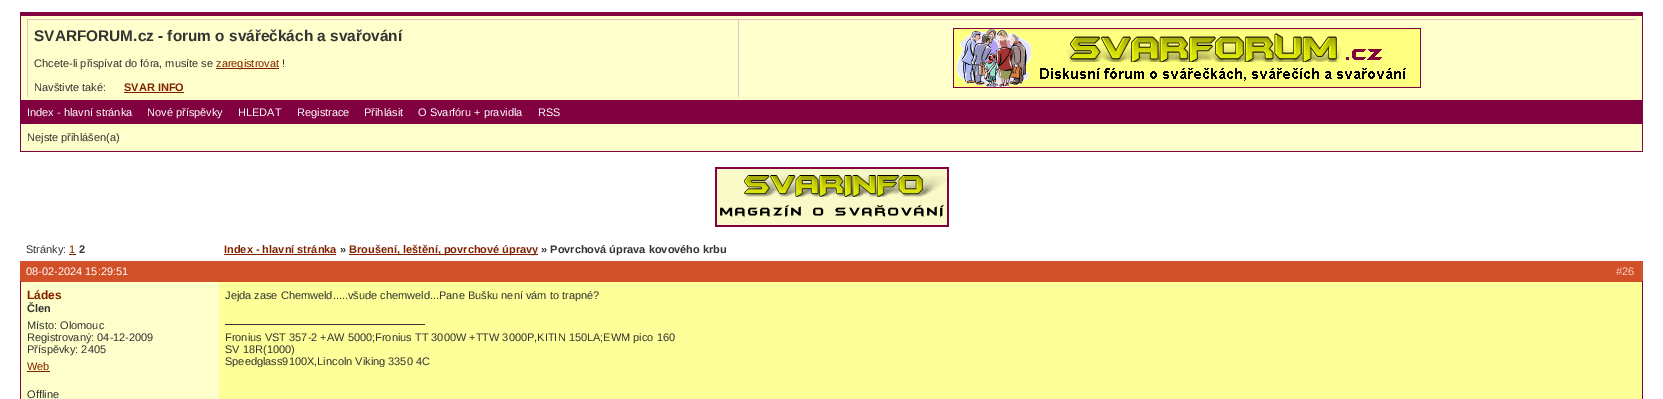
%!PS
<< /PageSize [1663 399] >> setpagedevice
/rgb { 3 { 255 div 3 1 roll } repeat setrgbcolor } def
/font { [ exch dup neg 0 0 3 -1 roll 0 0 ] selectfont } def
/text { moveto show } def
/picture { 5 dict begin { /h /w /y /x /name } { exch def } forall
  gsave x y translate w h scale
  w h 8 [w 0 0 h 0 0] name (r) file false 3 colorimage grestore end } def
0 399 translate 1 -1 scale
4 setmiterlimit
255 255 255 rgb
0 0 1663 399 rectfill
255 255 204 rgb
21 16 1621 135 rectfill
128 0 64 rgb
20 12 1623 4 rectfill
1642 12 1 140 rectfill
20 151 1623 1 rectfill
20 12 1 140 rectfill
225 195 195 rgb
27 19 1609 1 rectfill
27 19 1 78 rectfill
130 33 0 rgb
216 68 63 1 rectfill
124 92 60 1 rectfill
225 195 195 rgb
738 19 1 78 rectfill
(img_01.rgb) 953 28 468 60 picture
128 0 64 rgb
21 100 1621 24 rectfill
(img_02.rgb) 715 167 234 60 picture
130 33 0 rgb
69 254 7 1 rectfill
224 254 112 1 rectfill
349 254 189 1 rectfill
210 80 40 rgb
20 261 1623 21 rectfill
255 255 153 rgb
219 282 1423 117 rectfill
128 0 64 rgb
1642 281 1 118 rectfill
20 281 1 118 rectfill
255 255 204 rgb
21 282 198 117 rectfill
130 33 0 rgb
27 371 23 1 rectfill
51 51 51 rgb
225 324 200 1 rectfill
/LiberationSans-Bold 15.4 font
(SVARFORUM.cz - forum o svářečkách a svařování) 34 41 text
/LiberationSans-Regular 11 font
(Chcete-li přispívat do fóra, musíte se) 34 67 text
130 33 0 rgb
(zaregistrovat) 216 67 text
51 51 51 rgb
(!) 282 67 text
(Navštivte také:) 34 91 text
/LiberationSans-Bold 11 font
130 33 0 rgb
(SVAR INFO) 124 91 text
/LiberationSans-Regular 11 font
255 255 255 rgb
(Index - hlavní stránka) 27 116 text
(Nové příspěvky) 147 116 text
(HLEDAT) 238 116 text
(Registrace) 297 116 text
(Přihlásit) 364 116 text
(O Svarfóru + pravidla) 418 116 text
(RSS) 538 116 text
51 51 51 rgb
(Nejste přihlášen\(a\)) 27 141 text
(Stránky:) 26 253 text
130 33 0 rgb
(1) 69 253 text
/LiberationSans-Bold 11 font
51 51 51 rgb
(2) 79 253 text
130 33 0 rgb
(Index - hlavní stránka) 224 253 text
51 51 51 rgb
(») 340 253 text
130 33 0 rgb
(Broušení, leštění, povrchové úpravy) 349 253 text
51 51 51 rgb
(» Povrchová úprava kovového krbu) 541 253 text
/LiberationSans-Regular 11 font
255 255 255 rgb
(08-02-2024 15:29:51) 26 275 text
252 207 193 rgb
(#26) 1616 275 text
/LiberationSans-Bold 12 font
130 33 0 rgb
(Ládes) 27 299 text
/LiberationSans-Bold 11 font
51 51 51 rgb
(Člen) 27 312 text
/LiberationSans-Regular 11 font
(Místo: Olomouc) 27 329 text
(Registrovaný: 04-12-2009) 27 341 text
(Příspěvky: 2405) 27 353 text
130 33 0 rgb
(Web) 27 370 text
51 51 51 rgb
(Jejda zase Chemweld.....všude chemweld...Pane Bušku není vám to trapné?) 225 299 text
(Fronius VST 357-2 +AW 5000;Fronius TT 3000W +TTW 3000P,KITIN 150LA;EWM pico 160) 225 341 text
(SV 18R\(1000\)) 225 353 text
gsave
225 304 1411 63 rectclip
(Speedglass9100X,Lincoln Viking 3350 4C) 225 365 text
grestore
(Offline) 27 398 text
showpage
